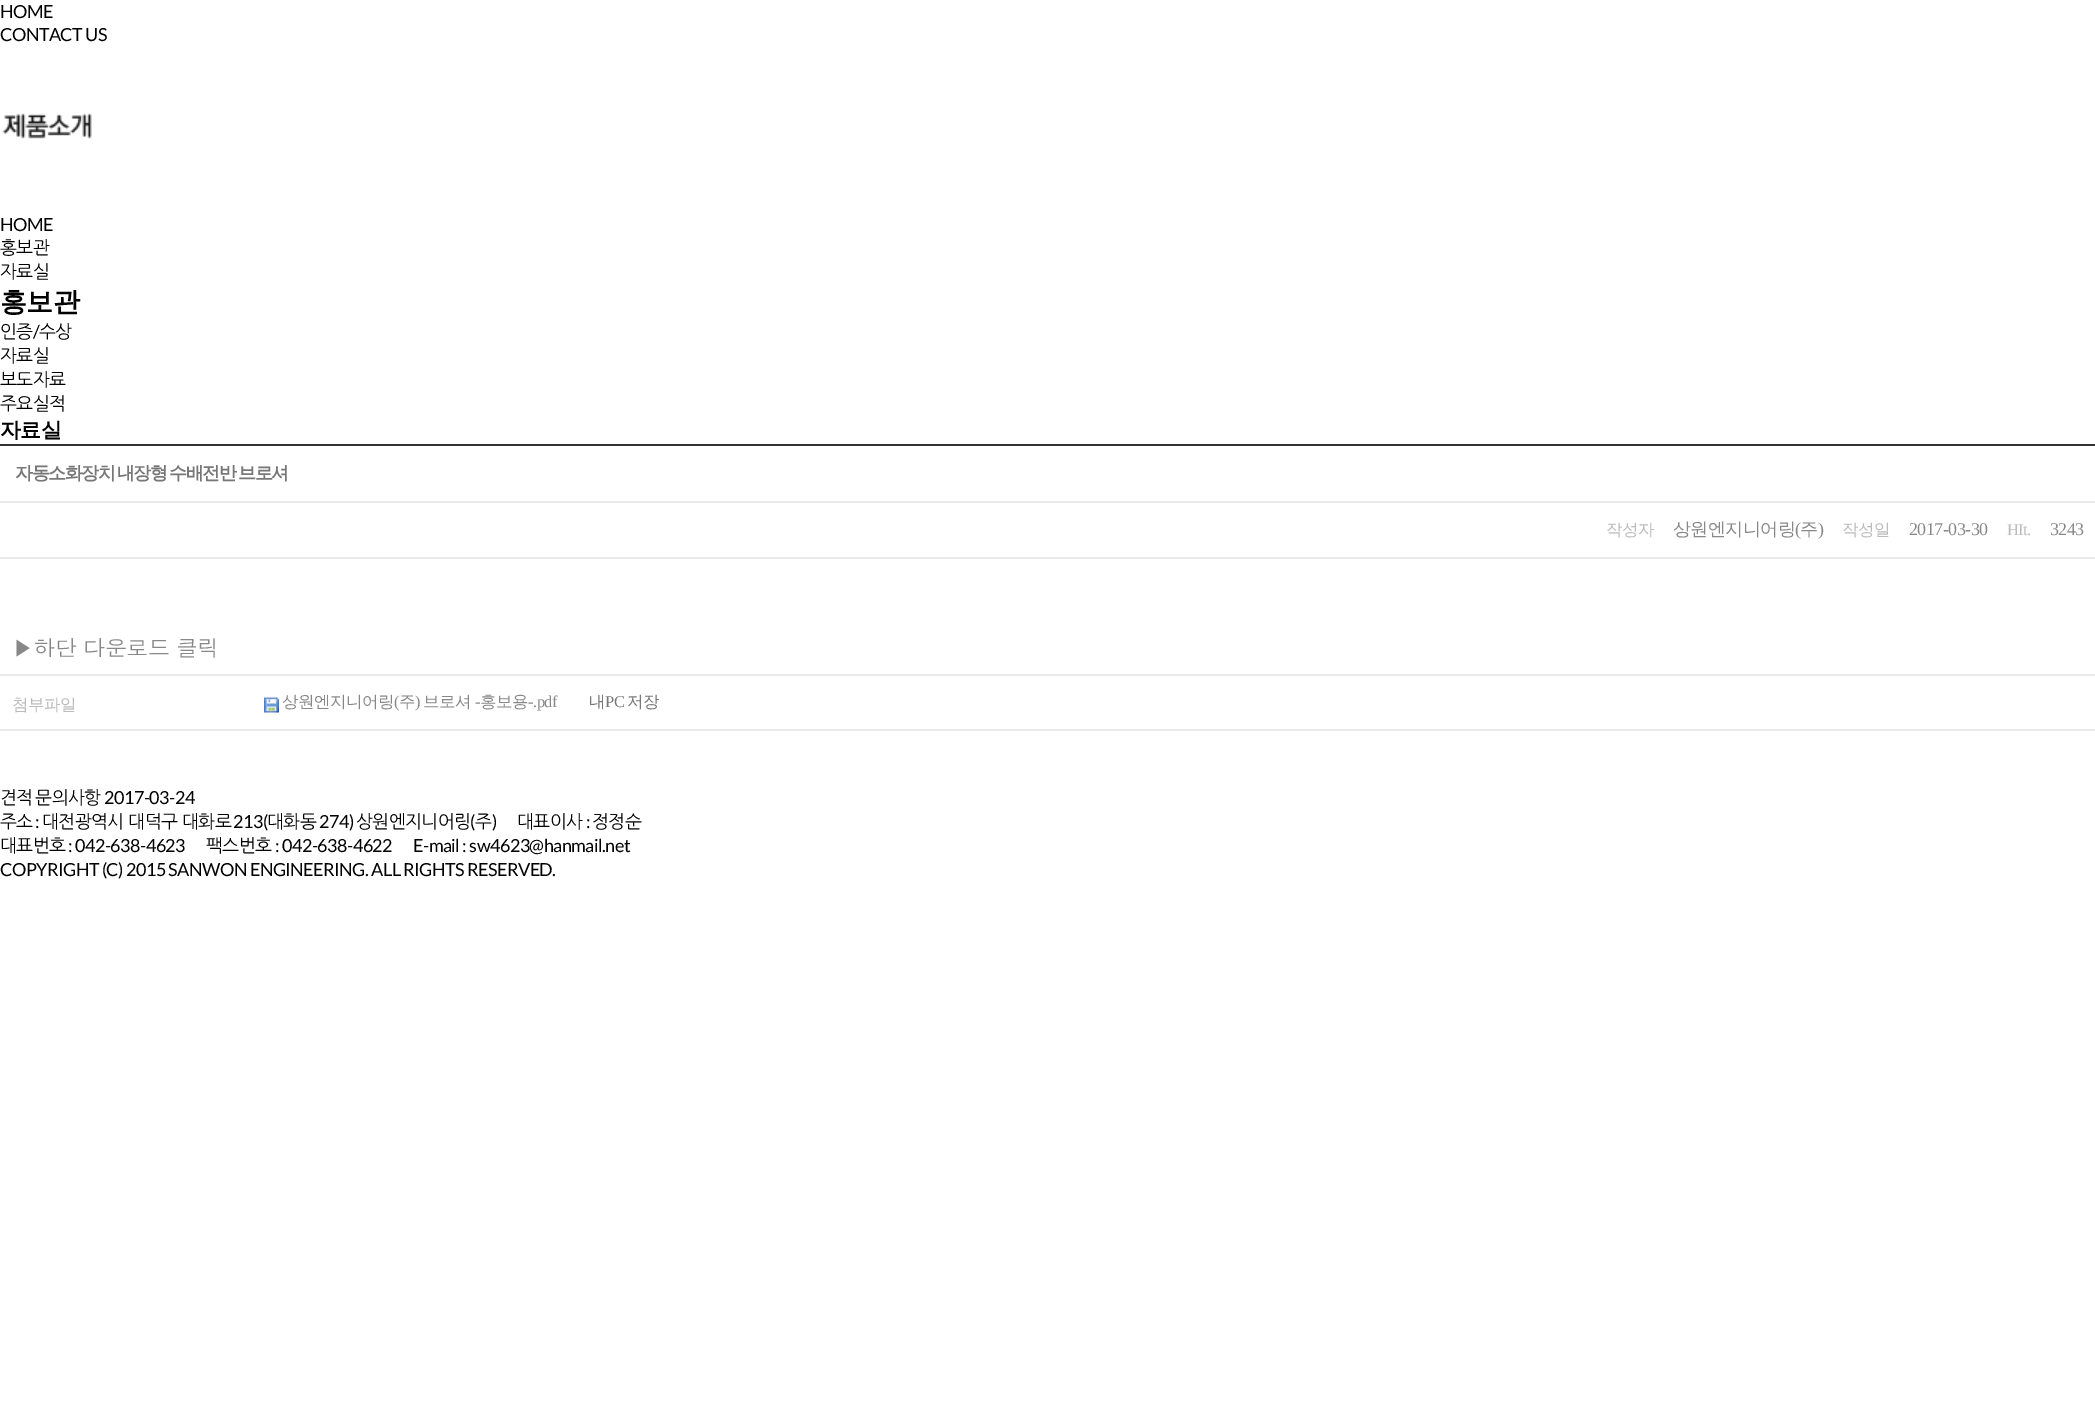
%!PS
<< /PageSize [2095 1426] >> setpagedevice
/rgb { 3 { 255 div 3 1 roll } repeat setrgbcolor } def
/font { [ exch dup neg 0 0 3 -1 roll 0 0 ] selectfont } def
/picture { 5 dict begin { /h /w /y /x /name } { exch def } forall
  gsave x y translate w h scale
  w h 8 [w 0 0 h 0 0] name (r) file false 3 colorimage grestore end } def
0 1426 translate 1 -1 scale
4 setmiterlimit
255 255 255 rgb
0 0 2095 1426 rectfill
(img_01.rgb) 2 113 90 26 picture
51 51 51 rgb
0 444 2095 2 rectfill
234 234 234 rgb
0 501 2095 2 rectfill
0 557 2095 2 rectfill
0 674 2095 2 rectfill
0 729 2095 2 rectfill
(img_02.rgb) 264 697 15 16 picture
/Lato-Regular 18 font
0 0 0 rgb
0 18 moveto -0.55 0 (HOME) ashow
0 41 moveto -0.55 0 (CONTACT US) ashow
0 231 moveto -0.55 0 (HOME) ashow
/NanumGothic-Regular 18 font
0 254 moveto -0.55 0 (홍보관) ashow
0 278 moveto -0.55 0 (자료실) ashow
/WenQuanYiZenHei-Bold 27 font
0 311 moveto -0.55 0 (홍보관) ashow
/NanumGothic-Regular 18 font
0 338 moveto -0.55 0 (인증) ashow
/Lato-Regular 18 font
33 338 moveto -0.55 0 (/) ashow
/NanumGothic-Regular 18 font
39 338 moveto -0.55 0 (수상) ashow
0 362 moveto -0.55 0 (자료실) ashow
0 386 moveto -0.55 0 (보도자료) ashow
0 410 moveto -0.55 0 (주요실적) ashow
/WenQuanYiZenHei-Bold 21 font
0 437 moveto -0.55 0 (자료실) ashow
/WenQuanYiZenHei-Bold 18 font
119 119 119 rgb
15 479 moveto -1 0 32 -1.5 0 (자동소화장치 내장형 수배전반 브로셔) awidthshow
/WenQuanYiZenHei-Medium 16.5 font
187 187 187 rgb
1606 535 moveto -0.55 0 (작성자) ashow
/WenQuanYiZenHei-Medium 18 font
136 136 136 rgb
1673 535 moveto -0.55 0 (상원엔지니어링) ashow
/LiberationSerif-Regular 18 font
1795 535 moveto -0.55 0 (\() ashow
/WenQuanYiZenHei-Medium 18 font
1800 535 moveto -0.55 0 (주) ashow
/LiberationSerif-Regular 18 font
1818 535 moveto -0.55 0 (\)) ashow
/WenQuanYiZenHei-Medium 16.5 font
187 187 187 rgb
1842 535 moveto -0.55 0 (작성일) ashow
/LiberationSerif-Regular 18 font
136 136 136 rgb
1909 535 moveto -0.55 0 (2017-03-30) ashow
/LiberationSerif-Regular 16.5 font
187 187 187 rgb
2007 535 moveto -0.55 0 (HIt.) ashow
/LiberationSerif-Regular 18 font
136 136 136 rgb
2050 535 moveto -0.55 0 (3243) ashow
/Dotum-Regular 22 font
12 656 moveto -0.55 0 (▶하단 다운로드 클릭) ashow
/WenQuanYiZenHei-Medium 16.5 font
187 187 187 rgb
12 710 moveto -0.55 0 (첨부파일) ashow
136 136 136 rgb
282 707 moveto -0.55 0 (상원엔지니어링) ashow
/LiberationSerif-Regular 16.5 font
394 707 moveto -0.55 0 (\() ashow
/WenQuanYiZenHei-Medium 16.5 font
399 707 moveto -0.55 0 (주) ashow
/LiberationSerif-Regular 16.5 font
415 707 moveto -0.55 0 (\)) ashow
/WenQuanYiZenHei-Medium 16.5 font
423 707 moveto -0.55 0 (브로셔) ashow
/LiberationSerif-Regular 16.5 font
475 707 moveto -0.55 0 (-) ashow
/WenQuanYiZenHei-Medium 16.5 font
480 707 moveto -0.55 0 (홍보용) ashow
/LiberationSerif-Regular 16.5 font
528 707 moveto -0.55 0 (-.pdf) ashow
/WenQuanYiZenHei-Medium 16.5 font
119 119 119 rgb
589 707 moveto -0.55 0 (내) ashow
/LiberationSerif-Regular 16.5 font
605 707 moveto -0.55 0 (PC) ashow
/WenQuanYiZenHei-Medium 16.5 font
627 707 moveto -0.55 0 (저장) ashow
/NanumGothic-Regular 18 font
0 0 0 rgb
0 804 moveto -2 0 32 -0.55 0 (견적 문의사항) awidthshow
/Lato-Regular 18 font
104 804 moveto -0.55 0 (2017-03-24) ashow
/NanumGothic-Regular 18 font
0 828 moveto -0.55 0 (주소) ashow
/Lato-Regular 18 font
35 828 moveto -0.55 0 (:) ashow
/NanumGothic-Regular 18 font
42 828 moveto -0.55 0 (대전광역시 대덕구 대화로) ashow
/Lato-Regular 18 font
233 828 moveto -0.55 0 (213\() ashow
/NanumGothic-Regular 18 font
267 828 moveto -0.55 0 (대화동) ashow
/Lato-Regular 18 font
319 828 moveto -0.55 0 (274\)) ashow
/NanumGothic-Regular 18 font
356 828 moveto -0.55 0 (상원엔지니어링) ashow
/Lato-Regular 18 font
470 828 moveto -0.55 0 (\() ashow
/NanumGothic-Regular 18 font
475 828 moveto -0.55 0 (주) ashow
/Lato-Regular 18 font
492 828 moveto -0.55 0 (\)) ashow
/NanumGothic-Regular 18 font
517 828 moveto -0.55 0 (대표이사) ashow
/Lato-Regular 18 font
586 828 moveto -0.55 0 (:) ashow
/NanumGothic-Regular 18 font
592 828 moveto -0.55 0 (정정순) ashow
0 852 moveto -0.55 0 (대표번호) ashow
/Lato-Regular 18 font
68 852 moveto -0.55 0 (: 042-638-4623) ashow
/NanumGothic-Regular 18 font
206 852 moveto -0.55 0 (팩스번호) ashow
/Lato-Regular 18 font
275 852 moveto -0.55 0 (: 042-638-4622) ashow
413 852 moveto -0.55 0 (E-mail : sw4623@hanmail.net) ashow
0 876 moveto -0.55 0 (COPYRIGHT \(C\) 2015 SANWON ENGINEERING. ALL RIGHTS RESERVED.) ashow
showpage
